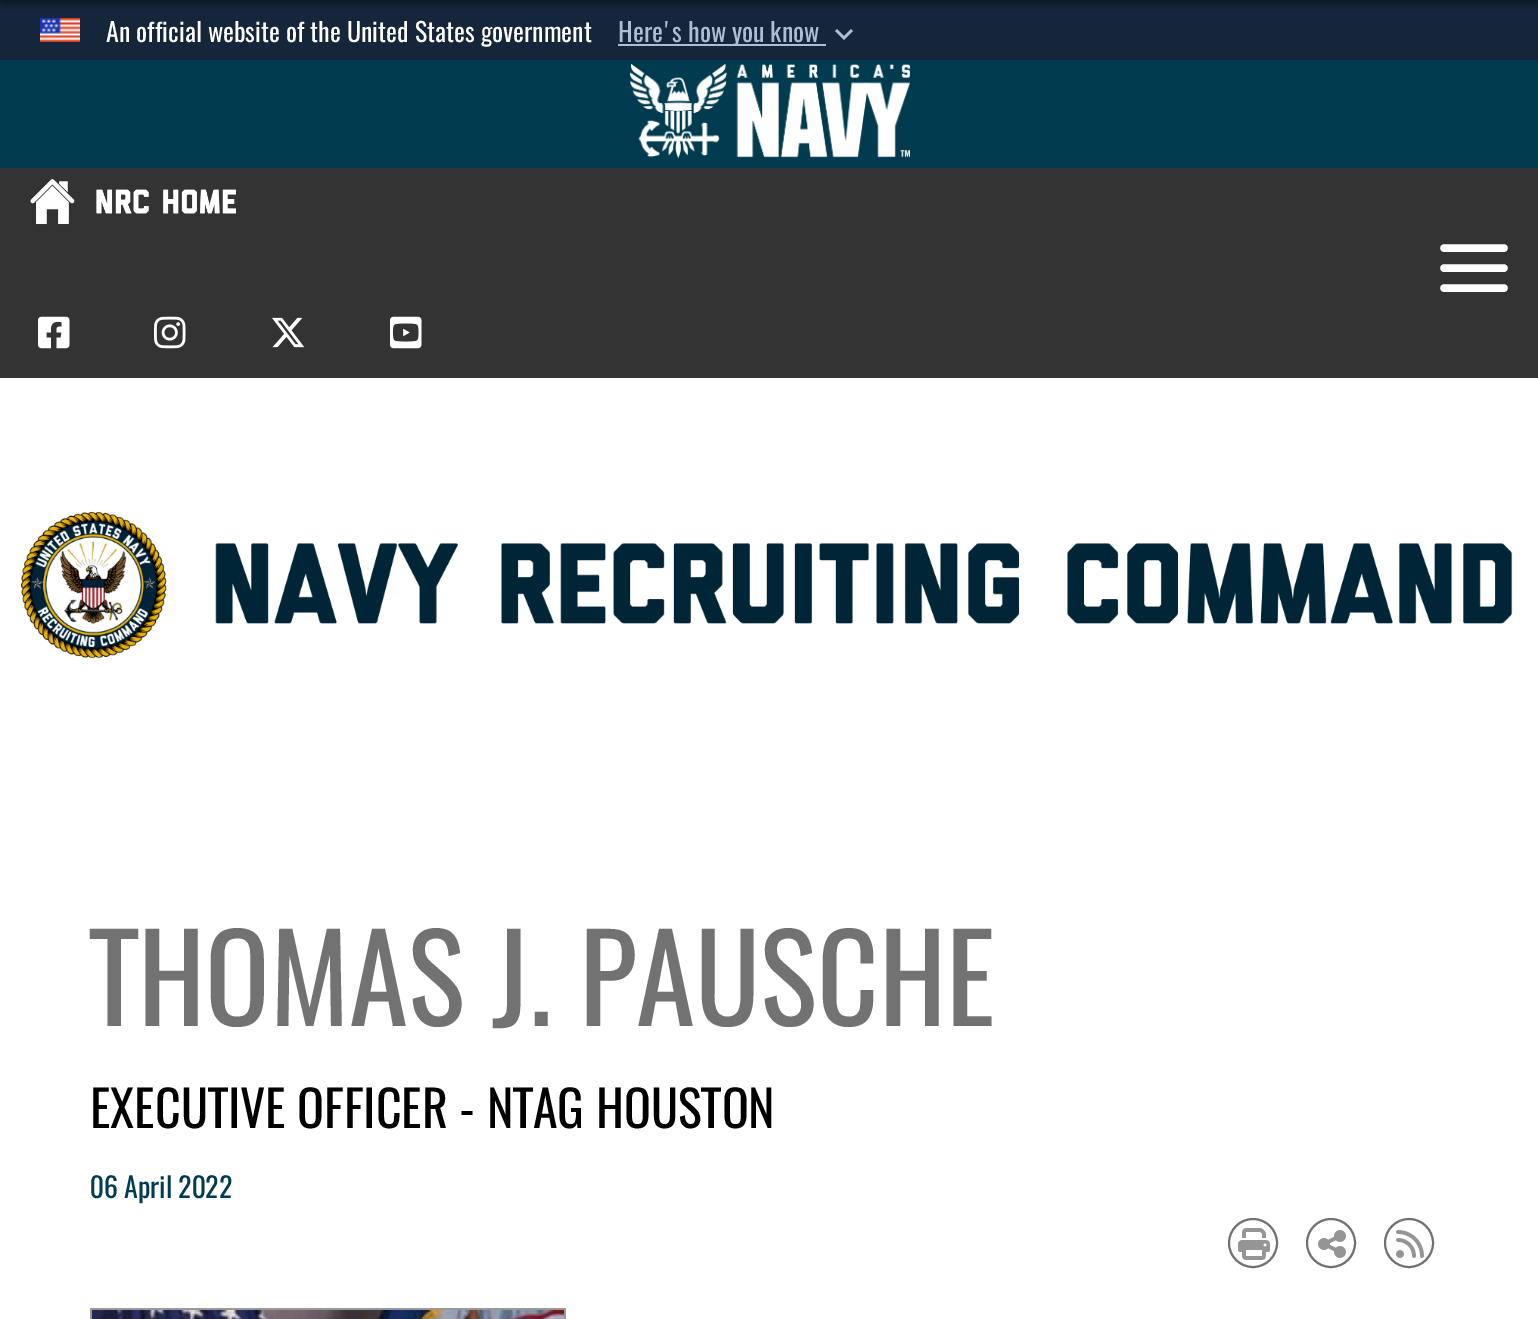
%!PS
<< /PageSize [1538 1319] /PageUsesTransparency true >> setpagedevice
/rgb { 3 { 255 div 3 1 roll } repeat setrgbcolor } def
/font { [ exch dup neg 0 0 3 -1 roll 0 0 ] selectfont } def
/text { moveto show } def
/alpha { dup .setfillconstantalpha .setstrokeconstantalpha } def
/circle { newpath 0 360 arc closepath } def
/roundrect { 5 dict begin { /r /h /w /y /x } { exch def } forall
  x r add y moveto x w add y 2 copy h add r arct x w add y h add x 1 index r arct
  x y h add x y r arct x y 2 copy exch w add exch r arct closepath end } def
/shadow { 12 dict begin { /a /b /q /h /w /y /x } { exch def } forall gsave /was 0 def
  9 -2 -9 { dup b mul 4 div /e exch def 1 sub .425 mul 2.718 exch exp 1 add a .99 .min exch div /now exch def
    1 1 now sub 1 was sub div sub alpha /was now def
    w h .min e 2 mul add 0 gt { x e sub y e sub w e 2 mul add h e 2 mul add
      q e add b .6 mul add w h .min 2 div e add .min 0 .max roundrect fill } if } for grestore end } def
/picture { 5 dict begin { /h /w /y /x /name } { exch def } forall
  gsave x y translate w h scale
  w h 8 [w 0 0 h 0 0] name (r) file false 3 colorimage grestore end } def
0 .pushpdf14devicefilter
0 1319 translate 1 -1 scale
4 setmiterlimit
255 255 255 rgb
0 0 1538 1319 rectfill
21 38 59 rgb
0 0 1538 60 rectfill
(img_01.rgb) 40 18 40 24 picture
174 191 212 rgb
618 44 208 2 rectfill
851 29 moveto -7 7 rlineto -7 -7 rlineto -2 2 rlineto 9 9 rlineto 9 -9 rlineto closepath fill
2 4 6 rgb
0 -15 1538 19 0 5 0.5 shadow
0 59 79 rgb
0 60 1538 108 rectfill
(img_02.rgb) 630 64 280 94 picture
51 51 51 rgb
0 168 1538 210 rectfill
(img_03.rgb) 30 179 206 46 picture
(img_04.rgb) 38 316 32 33 picture
(img_05.rgb) 154 316 32 33 picture
(img_06.rgb) 272 317 33 31 picture
(img_07.rgb) 390 316 32 33 picture
255 255 255 rgb
7.5 setlinewidth
1 setlinecap
1444 248 moveto 60 0 rlineto 1444 268 moveto 60 0 rlineto 1444 288 moveto 60 0 rlineto stroke
(img_08.rgb) 21 511 1492 148 picture
113 113 113 rgb
2 setlinewidth
0 setlinecap
1253 1243 24 circle stroke
(img_09.rgb) 1238 1228 32 32 picture
1331 1243 24 circle stroke
(img_10.rgb) 1318 1230 28 28 picture
1409 1243 24 circle stroke
(img_11.rgb) 1396 1230 28 28 picture
153 153 153 rgb
90 1308 476 11 rectfill
(img_12.rgb) 92 1310 472 9 picture
/Oswald-Regular 26 font
255 255 255 rgb
(An official website of the United States government) 106 42 text
174 191 212 rgb
(Here's how you know) 618 42 text
/Oswald-Regular 120 font
114 114 114 rgb
(THOMAS J. PAUSCHE) 90 1026 text
/Oswald-Regular 50 font
0 0 0 rgb
(EXECUTIVE OFFICER - NTAG HOUSTON) 90 1128 text
/Oswald-Regular 28 font
0 59 79 rgb
(06 April 2022) 90 1198 text
.poppdf14devicefilter showpage
